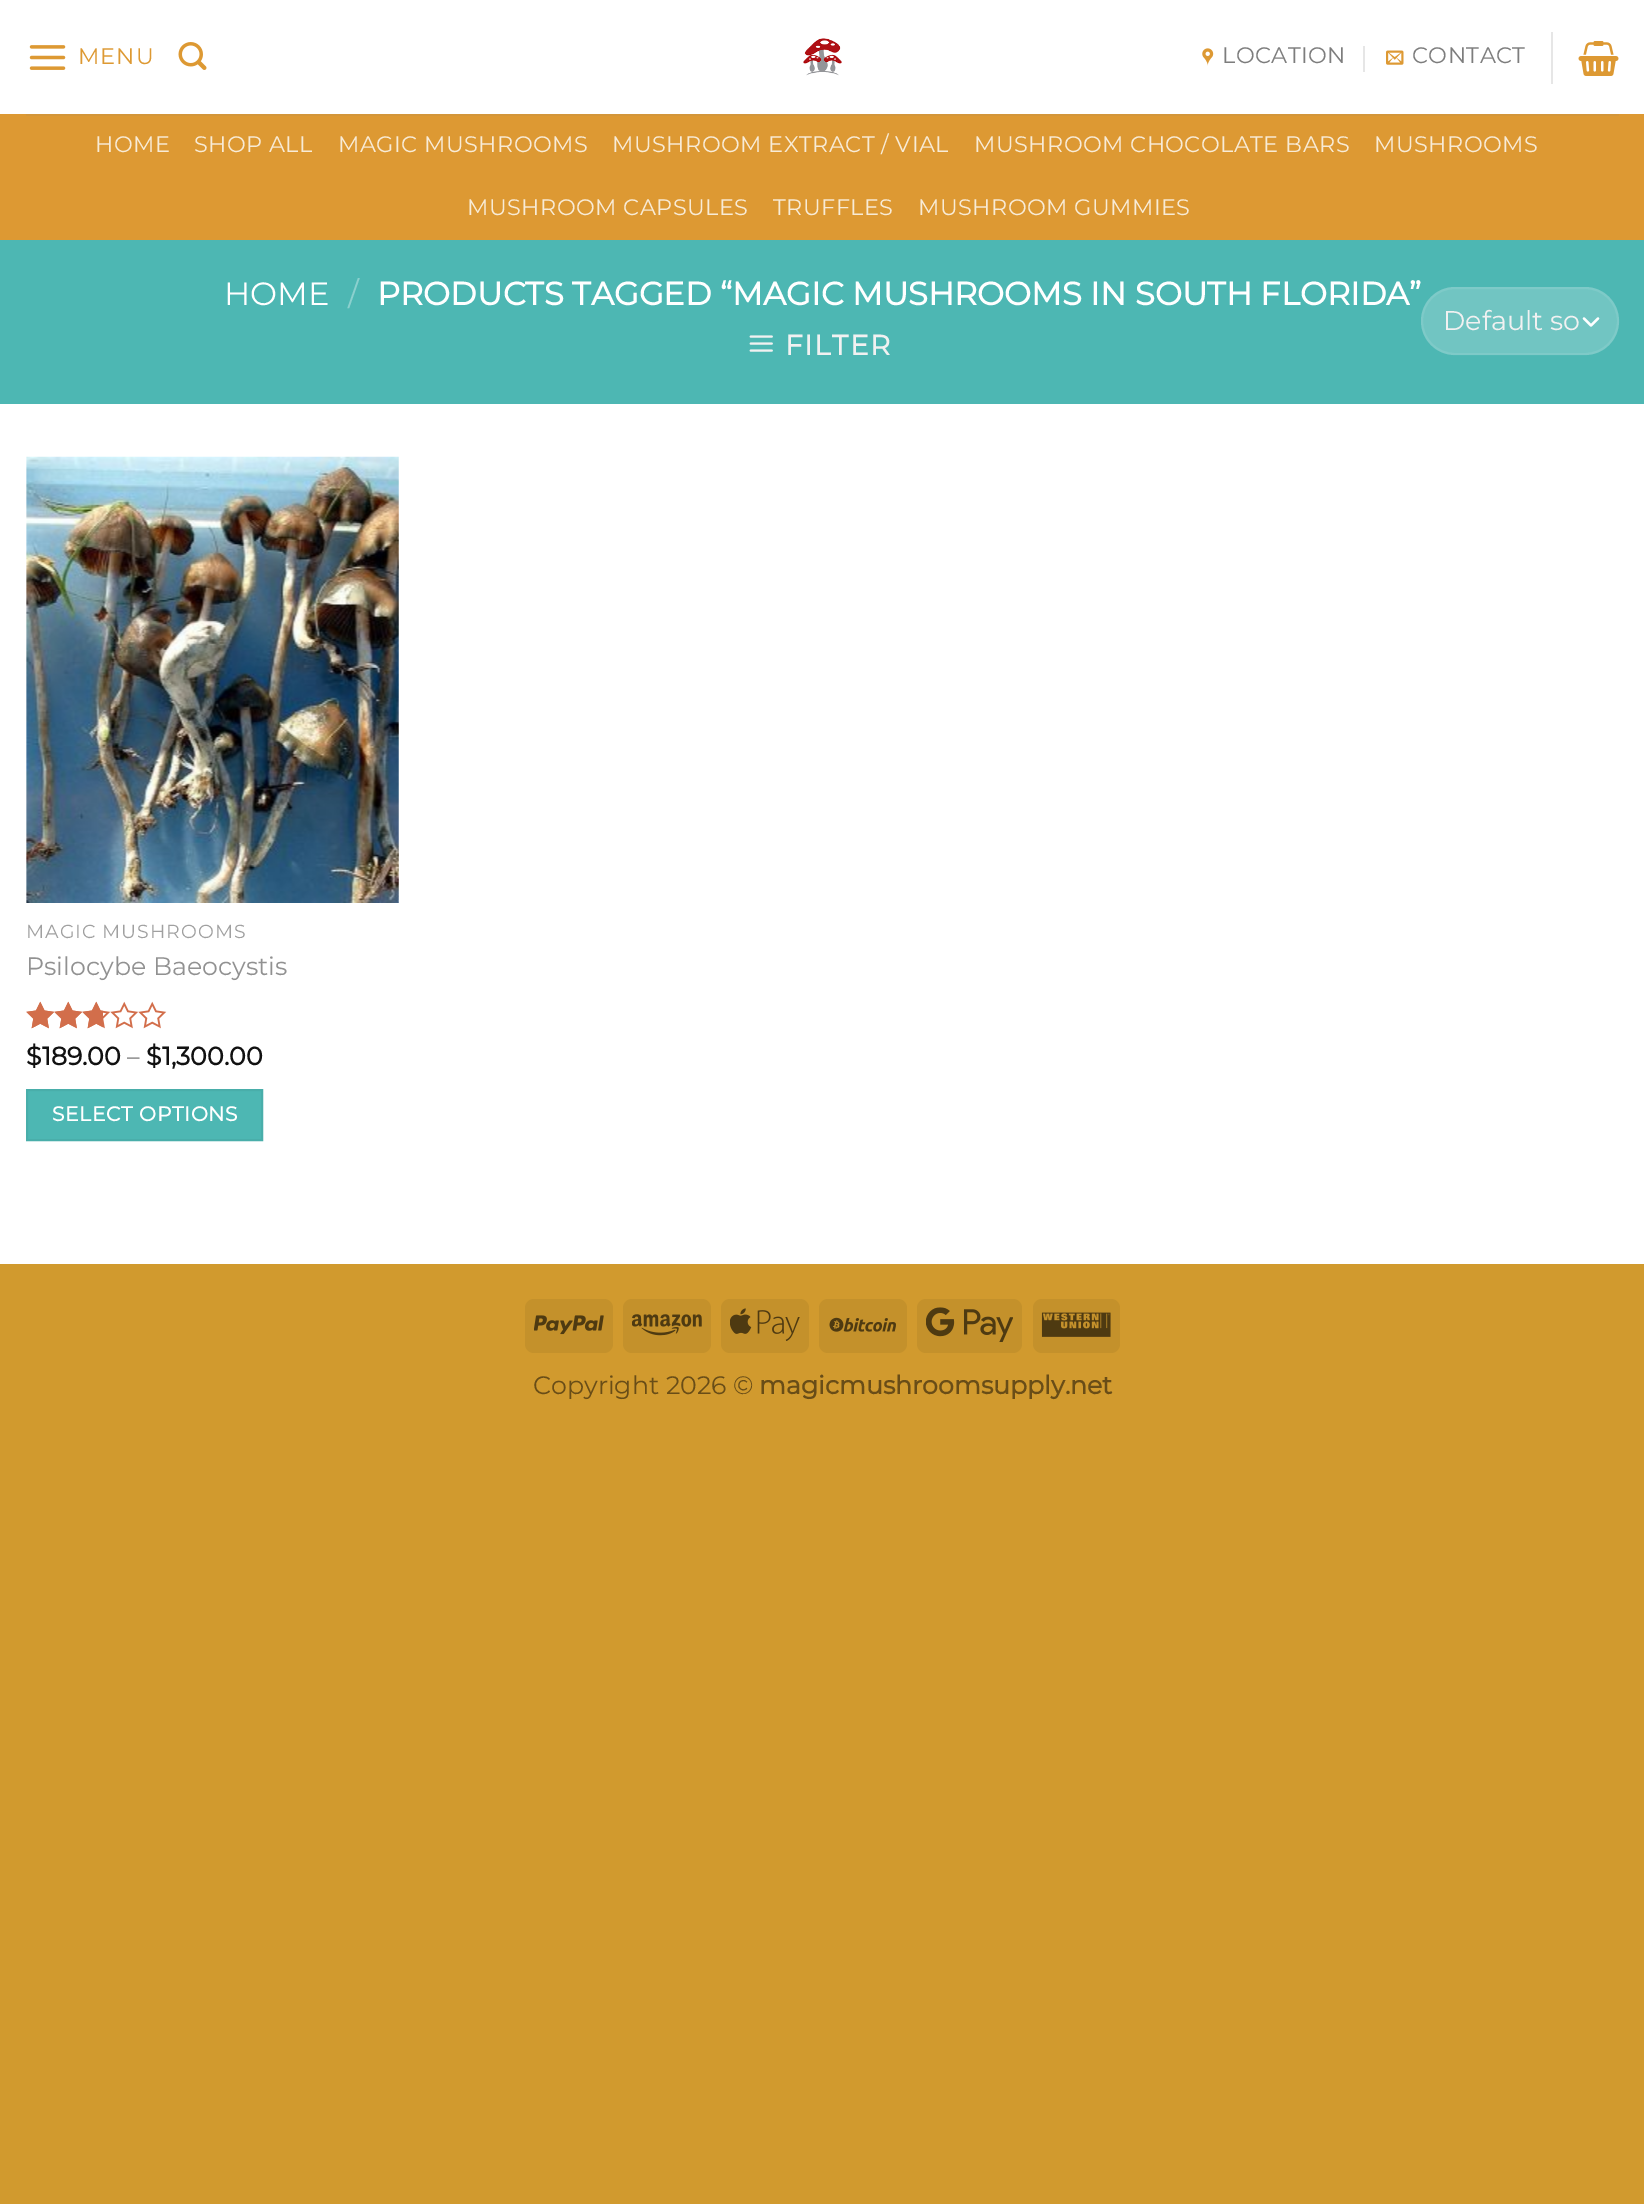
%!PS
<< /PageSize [1644 2204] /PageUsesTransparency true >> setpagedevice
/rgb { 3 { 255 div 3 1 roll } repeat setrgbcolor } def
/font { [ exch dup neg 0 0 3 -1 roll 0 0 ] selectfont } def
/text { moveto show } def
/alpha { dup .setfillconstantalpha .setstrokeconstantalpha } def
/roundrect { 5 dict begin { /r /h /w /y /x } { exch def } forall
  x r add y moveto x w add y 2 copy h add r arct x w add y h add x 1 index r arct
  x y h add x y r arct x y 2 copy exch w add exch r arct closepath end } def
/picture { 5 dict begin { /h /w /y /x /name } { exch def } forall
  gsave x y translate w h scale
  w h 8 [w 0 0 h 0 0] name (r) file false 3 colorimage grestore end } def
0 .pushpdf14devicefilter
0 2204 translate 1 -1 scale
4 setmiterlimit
209 154 46 rgb
0 0 1644 2204 rectfill
255 255 255 rgb
0 0 1644 1264 rectfill
(img_01.rgb) 29 45 37 25 picture
(img_02.rgb) 178 42 29 28 picture
(img_03.rgb) 803 38 39 38 picture
(img_04.rgb) 1202 48 12 18 picture
230 230 230 rgb
1363 46 2 26 rectfill
(img_05.rgb) 1386 50 18 15 picture
1551 32 2 52 rectfill
(img_06.rgb) 1578 41 41 35 picture
221 153 51 rgb
0 114 1644 126 rectfill
211 150 58 rgb
26 114 1593 2 rectfill
77 183 179 rgb
0 240 1644 164 rectfill
(img_07.rgb) 749 335 24 17 picture
113 197 194 rgb
1421 287 198 68 34 roundrect fill
255 255 255 rgb
2.3 setlinewidth
1 setlinecap
1 setlinejoin
1584 318.5 moveto 7 7 rlineto 7 -7 rlineto stroke
0.09 alpha
2 setlinewidth
0 setlinecap
0 setlinejoin
1422 288 196 66 33 roundrect stroke
1 alpha
(img_08.rgb) 26 456 373 447 picture
(img_09.rgb) 26 1001 141 28 picture
(img_10.rgb) 26 1001 77 28 picture
77 183 179 rgb
27 1090 moveto 235 0 rlineto 0 50 rlineto -235 0 rlineto closepath gsave fill grestore
73 174 170 rgb
stroke
196 145 43 rgb
525 1299 88 54 9 roundrect fill
(img_11.rgb) 534 1315 70 20 picture
623 1299 88 54 9 roundrect fill
(img_12.rgb) 632 1314 70 22 picture
721 1299 88 54 9 roundrect fill
(img_13.rgb) 730 1308 70 33 picture
819 1299 88 54 9 roundrect fill
(img_14.rgb) 829 1317 67 15 picture
917 1299 105 54 9 roundrect fill
(img_15.rgb) 926 1307 87 35 picture
1033 1299 87 54 9 roundrect fill
(img_16.rgb) 1041 1312 70 25 picture
/Montserrat-Thin 22.4 font
221 153 51 rgb
78 64 moveto 1 0 (MENU) ashow
125 125 125 rgb
1222 63 moveto 0.45 0 (LOCATION) ashow
1412 63 moveto 0.45 0 (CONTACT) ashow
248 235 214 rgb
95 152 moveto 0.45 0 (HOME) ashow
194 152 moveto 0.45 0 (SHOP ALL) ashow
338 152 moveto 0.45 0 (MAGIC MUSHROOMS) ashow
612 152 moveto 0.45 0 (MUSHROOM EXTRACT / VIAL) ashow
974 152 moveto 0.45 0 (MUSHROOM CHOCOLATE BARS) ashow
1374 152 moveto 0.45 0 (MUSHROOMS) ashow
467 215 moveto 0.45 0 (MUSHROOM CAPSULES) ashow
773 215 moveto 0.45 0 (TRUFFLES) ashow
918 215 moveto 0.45 0 (MUSHROOM GUMMIES) ashow
/Montserrat-Thin 32.2 font
255 255 255 rgb
(HOME) 224 305 text
139 208 206 rgb
(/) 348 305 text
/Montserrat-Bold 32.2 font
255 255 255 rgb
(PRODUCTS TAGGED “MAGIC MUSHROOMS IN SOUTH FLORIDA”) 377 305 text
/Montserrat-Bold 28 font
241 241 241 rgb
785 355 moveto 1.5 0 (FILTER) ashow
gsave
1444 299 135 44 rectclip
/Montserrat-Thin 27 font
(Default so) 1443 330 text
grestore
/Montserrat-Thin 18.9 font
160 160 160 rgb
26 938 moveto 1 0 (MAGIC MUSHROOMS) ashow
/Montserrat-Thin 25.25 font
145 145 145 rgb
(Psilocybe Baeocystis) 26 975 text
/Montserrat-Bold 25.25 font
17 17 17 rgb
($189.00) 26 1065 text
/Montserrat-Thin 25.25 font
119 119 119 rgb
(–) 127 1065 text
/Montserrat-Bold 25.25 font
17 17 17 rgb
($1,300.00) 146 1065 text
/Montserrat-Bold 20.25 font
255 255 255 rgb
52 1121 moveto 0.6 0 (SELECT OPTIONS) ashow
/Montserrat-Thin 25.25 font
105 77 23 rgb
(Copyright 2026 ©) 533 1394 text
/Montserrat-Bold 25.25 font
(magicmushroomsupply.net) 759 1394 text
.poppdf14devicefilter showpage
